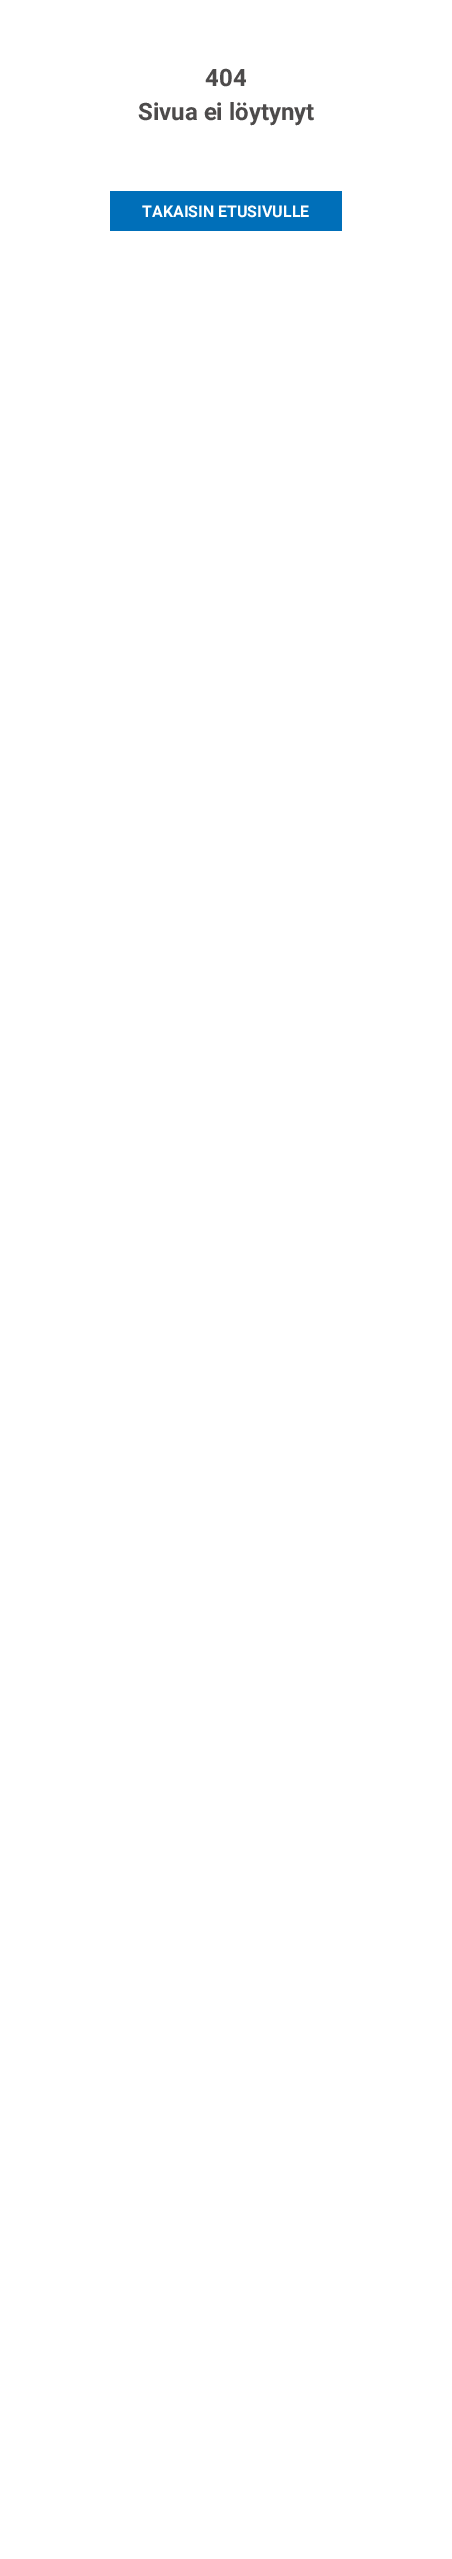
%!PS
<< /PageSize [452 2559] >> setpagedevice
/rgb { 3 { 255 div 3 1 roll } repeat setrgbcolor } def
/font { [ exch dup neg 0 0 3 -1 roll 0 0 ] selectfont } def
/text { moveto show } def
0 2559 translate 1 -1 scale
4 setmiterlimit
255 255 255 rgb
0 0 452 2559 rectfill
0 111 185 rgb
110 191 232 40 rectfill
/Roboto-Bold 24 font
77 75 75 rgb
(404) 205 86 text
(Sivua ei löytynyt) 138 120 text
/Roboto-Bold 16 font
255 255 255 rgb
(TAKAISIN ETUSIVULLE) 142 217 text
showpage
